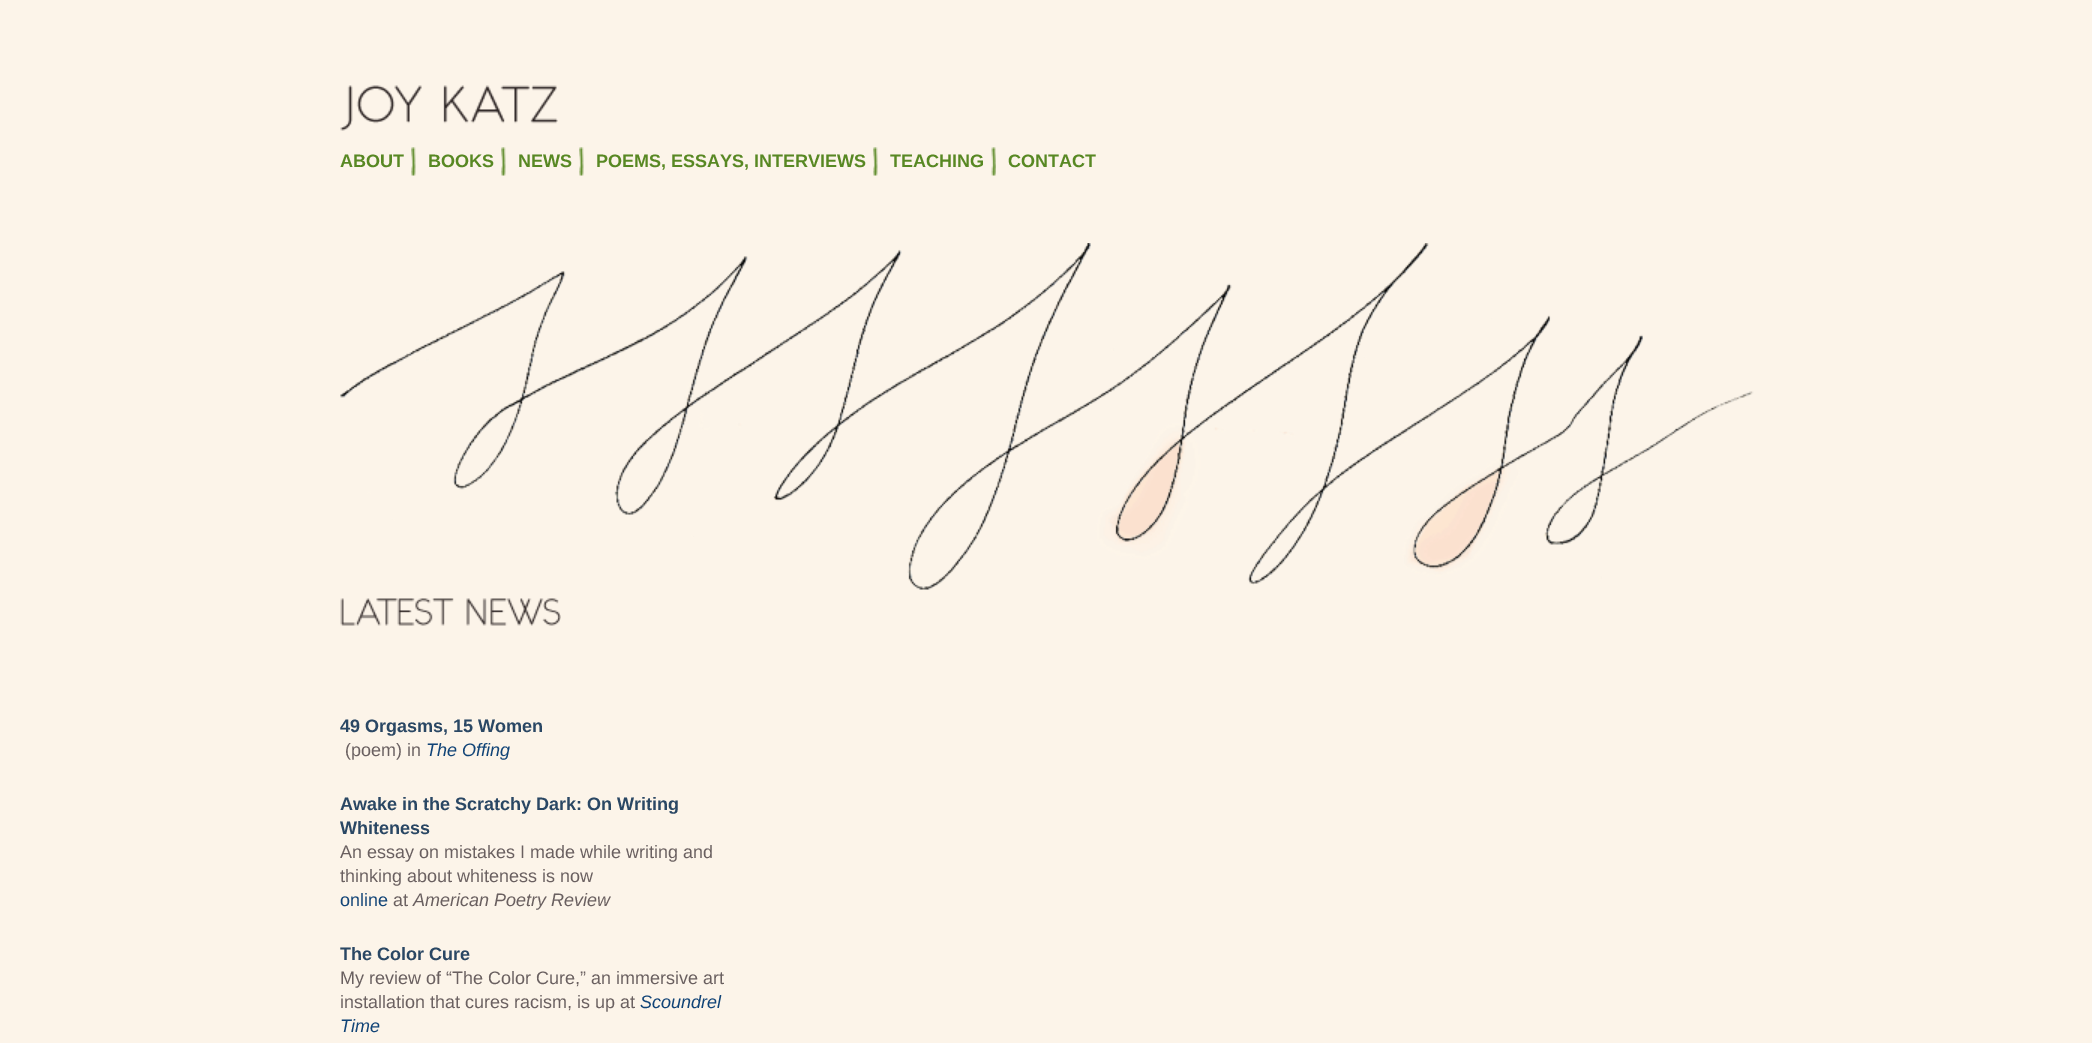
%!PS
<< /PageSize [2092 1043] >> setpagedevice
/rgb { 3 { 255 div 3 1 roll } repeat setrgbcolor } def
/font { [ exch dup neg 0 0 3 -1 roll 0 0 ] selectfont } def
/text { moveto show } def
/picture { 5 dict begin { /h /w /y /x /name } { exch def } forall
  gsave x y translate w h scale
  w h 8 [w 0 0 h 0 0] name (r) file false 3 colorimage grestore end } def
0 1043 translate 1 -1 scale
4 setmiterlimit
252 244 233 rgb
0 0 2092 1043 rectfill
(img_01.rgb) 340 85 218 46 picture
(img_02.rgb) 411 147 5 29 picture
(img_02.rgb) 501 147 5 29 picture
(img_02.rgb) 579 147 5 29 picture
(img_03.rgb) 873 147 5 29 picture
(img_04.rgb) 991 147 5 29 picture
(img_05.rgb) 340 243 1414 347 picture
(img_06.rgb) 340 598 221 28 picture
/LiberationSans-Bold 18 font
88 136 35 rgb
(ABOUT) 340 167 text
(BOOKS) 428 167 text
(NEWS) 518 167 text
(POEMS, ESSAYS, INTERVIEWS) 596 167 text
(TEACHING) 890 167 text
(CONTACT) 1008 167 text
42 71 100 rgb
(49 Orgasms, 15 Women) 340 732 text
/LiberationSans-Regular 18 font
106 96 96 rgb
(\(poem\) in) 345 756 text
/LiberationSans-Italic 18 font
17 68 119 rgb
(The Offing) 426 756 text
/LiberationSans-Bold 18 font
42 71 100 rgb
(Awake in the Scratchy Dark: On Writing) 340 810 text
(Whiteness) 340 834 text
/LiberationSans-Regular 18 font
106 96 96 rgb
(An essay on mistakes I made while writing and) 340 858 text
(thinking about whiteness is now) 340 882 text
17 68 119 rgb
(online) 340 906 text
106 96 96 rgb
(at) 393 906 text
/LiberationSans-Italic 18 font
(American Poetry Review) 413 906 text
/LiberationSans-Bold 18 font
42 71 100 rgb
(The Color Cure) 340 960 text
/LiberationSans-Regular 18 font
106 96 96 rgb
(My review of “The Color Cure,” an immersive art) 340 984 text
(installation that cures racism, is up at) 340 1008 text
/LiberationSans-Italic 18 font
17 68 119 rgb
(Scoundrel) 640 1008 text
(Time) 340 1032 text
showpage
